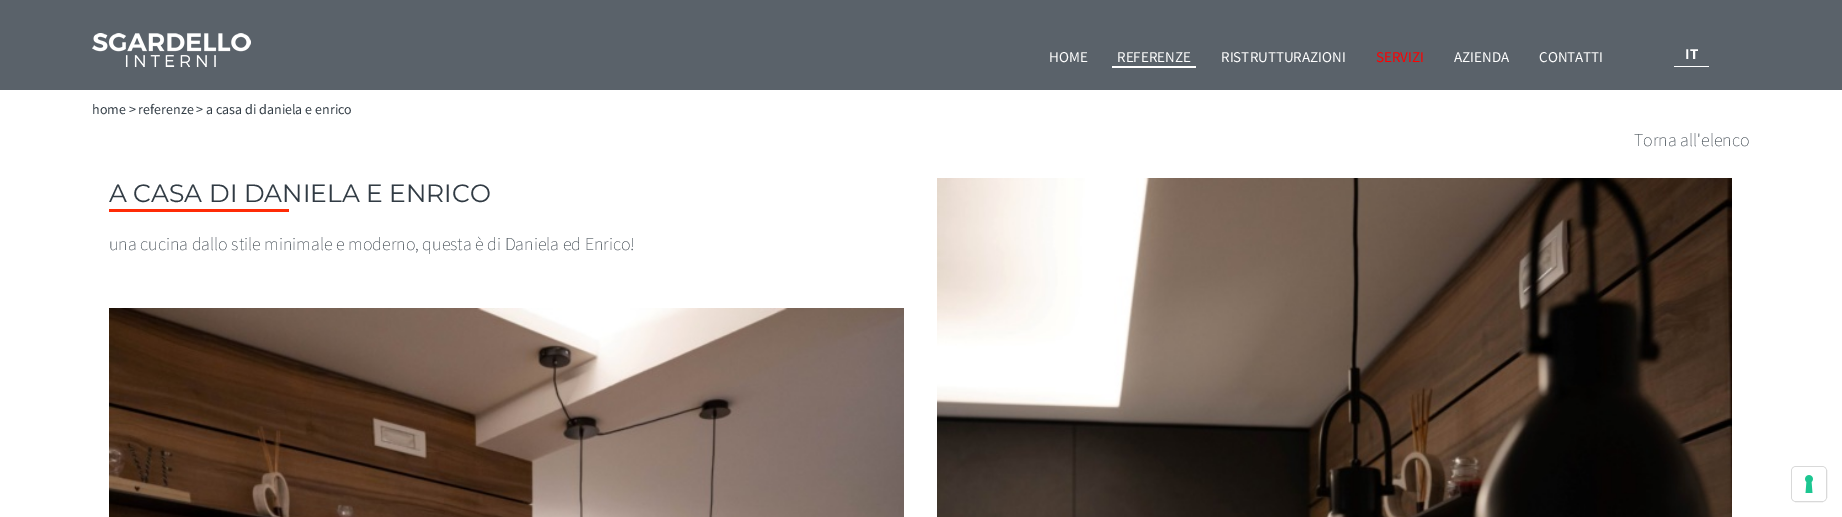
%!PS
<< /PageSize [1842 517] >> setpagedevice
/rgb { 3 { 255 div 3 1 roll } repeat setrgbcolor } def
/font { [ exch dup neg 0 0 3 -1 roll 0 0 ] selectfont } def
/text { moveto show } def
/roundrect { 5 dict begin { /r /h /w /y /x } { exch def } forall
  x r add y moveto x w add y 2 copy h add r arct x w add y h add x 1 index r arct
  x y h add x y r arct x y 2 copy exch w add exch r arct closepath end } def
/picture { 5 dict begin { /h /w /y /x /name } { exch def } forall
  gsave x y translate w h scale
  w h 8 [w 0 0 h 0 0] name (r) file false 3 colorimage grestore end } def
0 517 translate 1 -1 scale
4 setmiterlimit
255 255 255 rgb
0 0 1842 517 rectfill
90 98 106 rgb
0 0 1842 90 rectfill
(img_01.rgb) 92 33 159 34 picture
255 255 255 rgb
1112 66 84 2 rectfill
1674 66 35 1 rectfill
255 43 6 rgb
109 209 180 3 rectfill
(img_02.rgb) 937 178 795 339 picture
(img_03.rgb) 109 308 795 209 picture
217 217 217 rgb
1791.5 466.5 35 35 4.5 roundrect stroke
255 255 255 rgb
1792 467 34 34 4 roundrect fill
(img_04.rgb) 1805 475 8 18 picture
/SourceSansPro-Regular 15 font
(HOME) 1049 62 text
(REFERENZE) 1117 62 text
(RISTRUTTURAZIONI) 1221 62 text
255 0 0 rgb
(SERVIZI) 1376 62 text
255 255 255 rgb
(AZIENDA) 1454 62 text
(CONTATTI) 1539 62 text
/SourceSansPro-Bold 15 font
(IT) 1685 59 text
/SourceSansPro-Regular 14 font
49 59 68 rgb
(home > referenze > a casa di daniela e enrico) 92 114 text
/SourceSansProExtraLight-ExtraLight 18 font
(Torna all'elenco) 1634 146 text
/Montserrat-Regular 25 font
(A CASA DI DANIELA E ENRICO) 109 202 text
/SourceSansProExtraLight-ExtraLight 18 font
(una cucina dallo stile minimale e moderno, questa è di Daniela ed Enrico!) 109 250 text
showpage
